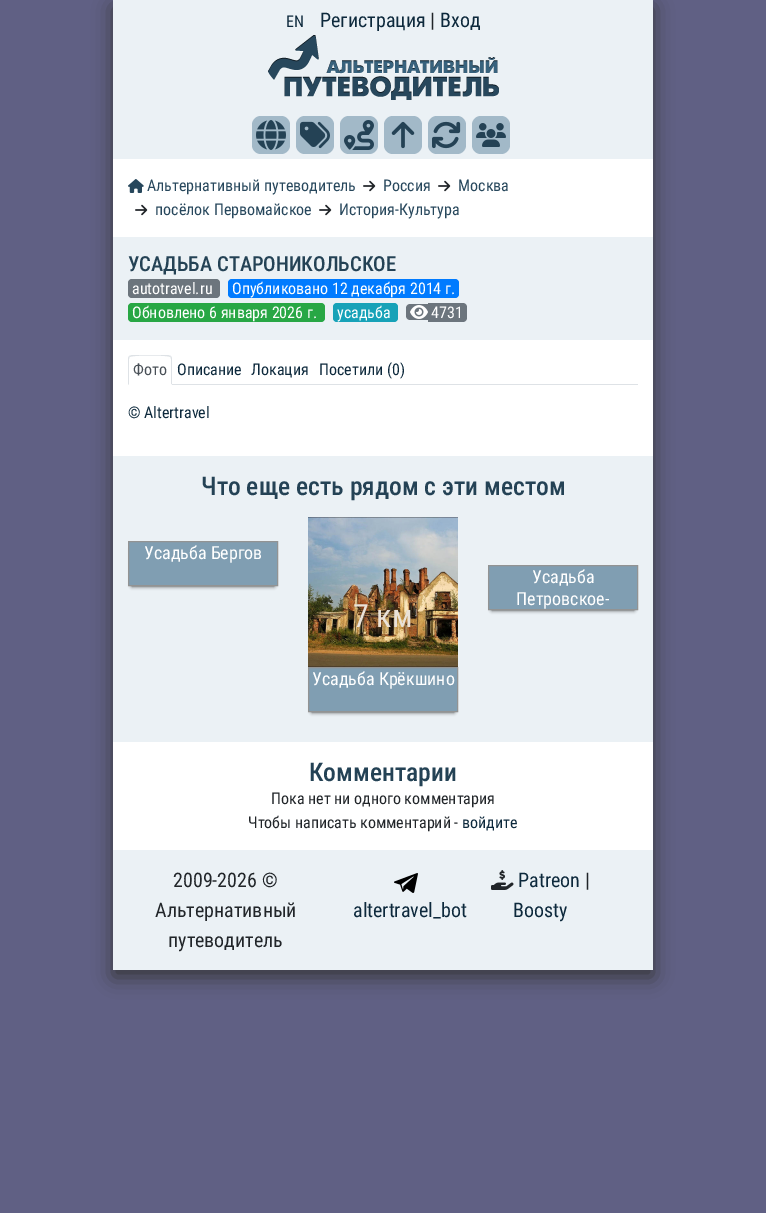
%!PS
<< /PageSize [766 1213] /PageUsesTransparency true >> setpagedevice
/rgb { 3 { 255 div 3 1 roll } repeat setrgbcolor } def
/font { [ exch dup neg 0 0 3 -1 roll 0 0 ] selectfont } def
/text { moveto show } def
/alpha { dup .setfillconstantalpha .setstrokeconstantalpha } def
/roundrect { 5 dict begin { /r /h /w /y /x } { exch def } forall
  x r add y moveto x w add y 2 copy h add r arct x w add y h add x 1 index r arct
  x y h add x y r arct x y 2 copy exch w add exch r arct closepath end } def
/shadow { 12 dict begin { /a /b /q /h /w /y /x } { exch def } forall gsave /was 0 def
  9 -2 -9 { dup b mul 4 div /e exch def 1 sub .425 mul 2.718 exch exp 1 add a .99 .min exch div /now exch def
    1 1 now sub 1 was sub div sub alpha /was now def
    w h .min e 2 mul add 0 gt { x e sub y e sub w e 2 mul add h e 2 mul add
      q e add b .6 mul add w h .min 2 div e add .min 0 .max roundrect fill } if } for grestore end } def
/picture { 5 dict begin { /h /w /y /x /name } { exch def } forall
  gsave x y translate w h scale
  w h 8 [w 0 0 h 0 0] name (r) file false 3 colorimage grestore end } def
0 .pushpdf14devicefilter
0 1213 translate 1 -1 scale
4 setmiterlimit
96 96 132 rgb
0 0 766 1213 rectfill
50 50 50 rgb
113 7 540 970 0 10 0.9 shadow
235 241 245 rgb
113 0 540 159 rectfill
(img_01.rgb) 268 35 231 65 picture
162 185 200 rgb
252 116 38 38 9 roundrect fill
(img_02.rgb) 256 120 30 30 picture
296 116 38 38 9 roundrect fill
(img_03.rgb) 300 121 30 28 picture
340 116 38 38 9 roundrect fill
(img_04.rgb) 344 120 30 30 picture
384 116 38 38 9 roundrect fill
(img_05.rgb) 391 121 24 28 picture
428 116 38 38 9 roundrect fill
(img_06.rgb) 432 121 29 28 picture
472 116 38 38 9 roundrect fill
(img_07.rgb) 476 123 30 24 picture
255 255 255 rgb
113 159 540 78 rectfill
(img_08.rgb) 128 179 16 14 picture
(img_09.rgb) 363 180 13 12 picture
(img_09.rgb) 438 180 13 12 picture
(img_09.rgb) 135 204 13 12 picture
(img_09.rgb) 319 204 13 12 picture
235 241 245 rgb
113 237 540 103 rectfill
108 117 125 rgb
128 279 92 19 4 roundrect fill
0 123 255 rgb
228 279 231 19 4 roundrect fill
40 167 69 rgb
128 303 197 19 4 roundrect fill
23 162 184 rgb
333 303 65 19 4 roundrect fill
108 117 125 rgb
410 304 moveto 18 0 rlineto 0 16 rlineto -18 0 rlineto -2 0 -4 -2 -4 -4 rcurveto 0 -8 rlineto 0 -2 2 -4 4 -4 rcurveto closepath fill
428 303 moveto 35 0 rlineto 2 0 4 2 4 4 rcurveto 0 11 rlineto 0 2 -2 4 -4 4 rcurveto -35 0 rlineto closepath fill
(img_10.rgb) 410 305 18 14 picture
255 255 255 rgb
113 340 540 116 rectfill
222 226 230 rgb
172 384 466 1 rectfill
132 355 moveto -3 1 rlineto 1 1 rlineto 1 -2 39 -2 40 0 rcurveto 1 -1 rlineto -3 -1 rlineto closepath fill
172 385 moveto 0 -26 rlineto 0 -1 -0.5 -2 -1 -3 rcurveto -1 1 rlineto 1 0 1 1 1 2 rcurveto 0 25 rlineto closepath fill
255 255 255 rgb
172 385 moveto -1 -1 rlineto -42 0 rlineto -1 1 rlineto closepath fill
222 226 230 rgb
128 385 moveto 1 -1 rlineto 0 -25 rlineto 0 -1 0 -2 1 -2 rcurveto -1 -1 rlineto -0.5 1 -1 2 -1 3 rcurveto closepath fill
235 241 245 rgb
113 456 540 286 rectfill
24 24 25 rgb
132 549 142 37 0 2 1 shadow
128 158 178 rgb
128.5 541.5 moveto 149 0 rlineto 0 44 rlineto -149 0 rlineto closepath gsave fill grestore
146 147 147 rgb
stroke
24 24 25 rgb
492 573 142 37 0 2 1 shadow
128 158 178 rgb
488.5 565.5 moveto 149 0 rlineto 0 44 rlineto -149 0 rlineto closepath gsave fill grestore
146 147 147 rgb
stroke
(img_11.rgb) 308 517 150 150 picture
24 24 25 rgb
312 675 142 37 0 2 1 shadow
128 158 178 rgb
308.5 667.5 moveto 149 0 rlineto 0 44 rlineto -149 0 rlineto closepath gsave fill grestore
146 147 147 rgb
stroke
255 255 255 rgb
113 742 540 108 rectfill
235 241 245 rgb
113 850 540 120 rectfill
(img_12.rgb) 394 873 24 20 picture
(img_13.rgb) 491 870 23 20 picture
/RobotoCondensed-Regular 16 font
13 41 60 rgb
(EN) 286 27 text
/RobotoCondensed-Regular 20 font
(Регистрация) 320 27 text
33 37 41 rgb
(|) 430 27 text
13 41 60 rgb
(Вход) 440 27 text
/RobotoCondensed-Regular 16 font
39 71 92 rgb
(Альтернативный путеводитель) 147 191 text
(Россия) 383 191 text
(Москва) 458 191 text
(посёлок Первомайское) 155 215 text
(История-Культура) 339 215 text
/RobotoCondensed-Medium 20.75 font
36 66 85 rgb
(УСАДЬБА СТАРОНИКОЛЬСКОЕ) 128 271 text
/RobotoCondensed-Regular 16 font
255 255 255 rgb
(autotravel.ru) 132 294 text
(Опубликовано 12 декабря 2014 г.) 232 294 text
(Обновлено 6 января 2026 г.) 132 318 text
(усадьба) 337 318 text
(4731) 431 318 text
73 80 87 rgb
(Фото) 133 375 text
13 41 60 rgb
(Описание) 177 375 text
(Локация) 251 375 text
(Посетили \(0\)) 319 375 text
(© Altertravel) 128 418 text
/RobotoCondensed-Medium 25.6 font
36 66 85 rgb
(Что еще есть рядом с эти местом) 201 495 text
/RobotoCondensed-Regular 18 font
255 255 255 rgb
(Усадьба Бергов) 144 559 text
(Усадьба) 532 583 text
(Петровское-) 516 605 text
/RobotoCondensed-Regular 32 font
234 226 217 rgb
(7 км) 353 627 text
/RobotoCondensed-Regular 18 font
255 255 255 rgb
(Усадьба Крёкшино) 312 685 text
/RobotoCondensed-Medium 25.6 font
36 66 85 rgb
(Комментарии) 309 781 text
/RobotoCondensed-Regular 16 font
33 37 41 rgb
(Пока нет ни одного комментария) 271 804 text
(Чтобы написать комментарий -) 248 828 text
13 41 60 rgb
(войдите) 462 828 text
/RobotoCondensed-Regular 20 font
33 37 41 rgb
(2009-2026 ©) 173 887 text
(Альтернативный) 155 917 text
(путеводитель) 168 947 text
13 41 60 rgb
(altertravel_bot) 353 917 text
(Patreon) 518 887 text
33 37 41 rgb
(|) 585 887 text
13 41 60 rgb
(Boosty) 513 917 text
.poppdf14devicefilter showpage
